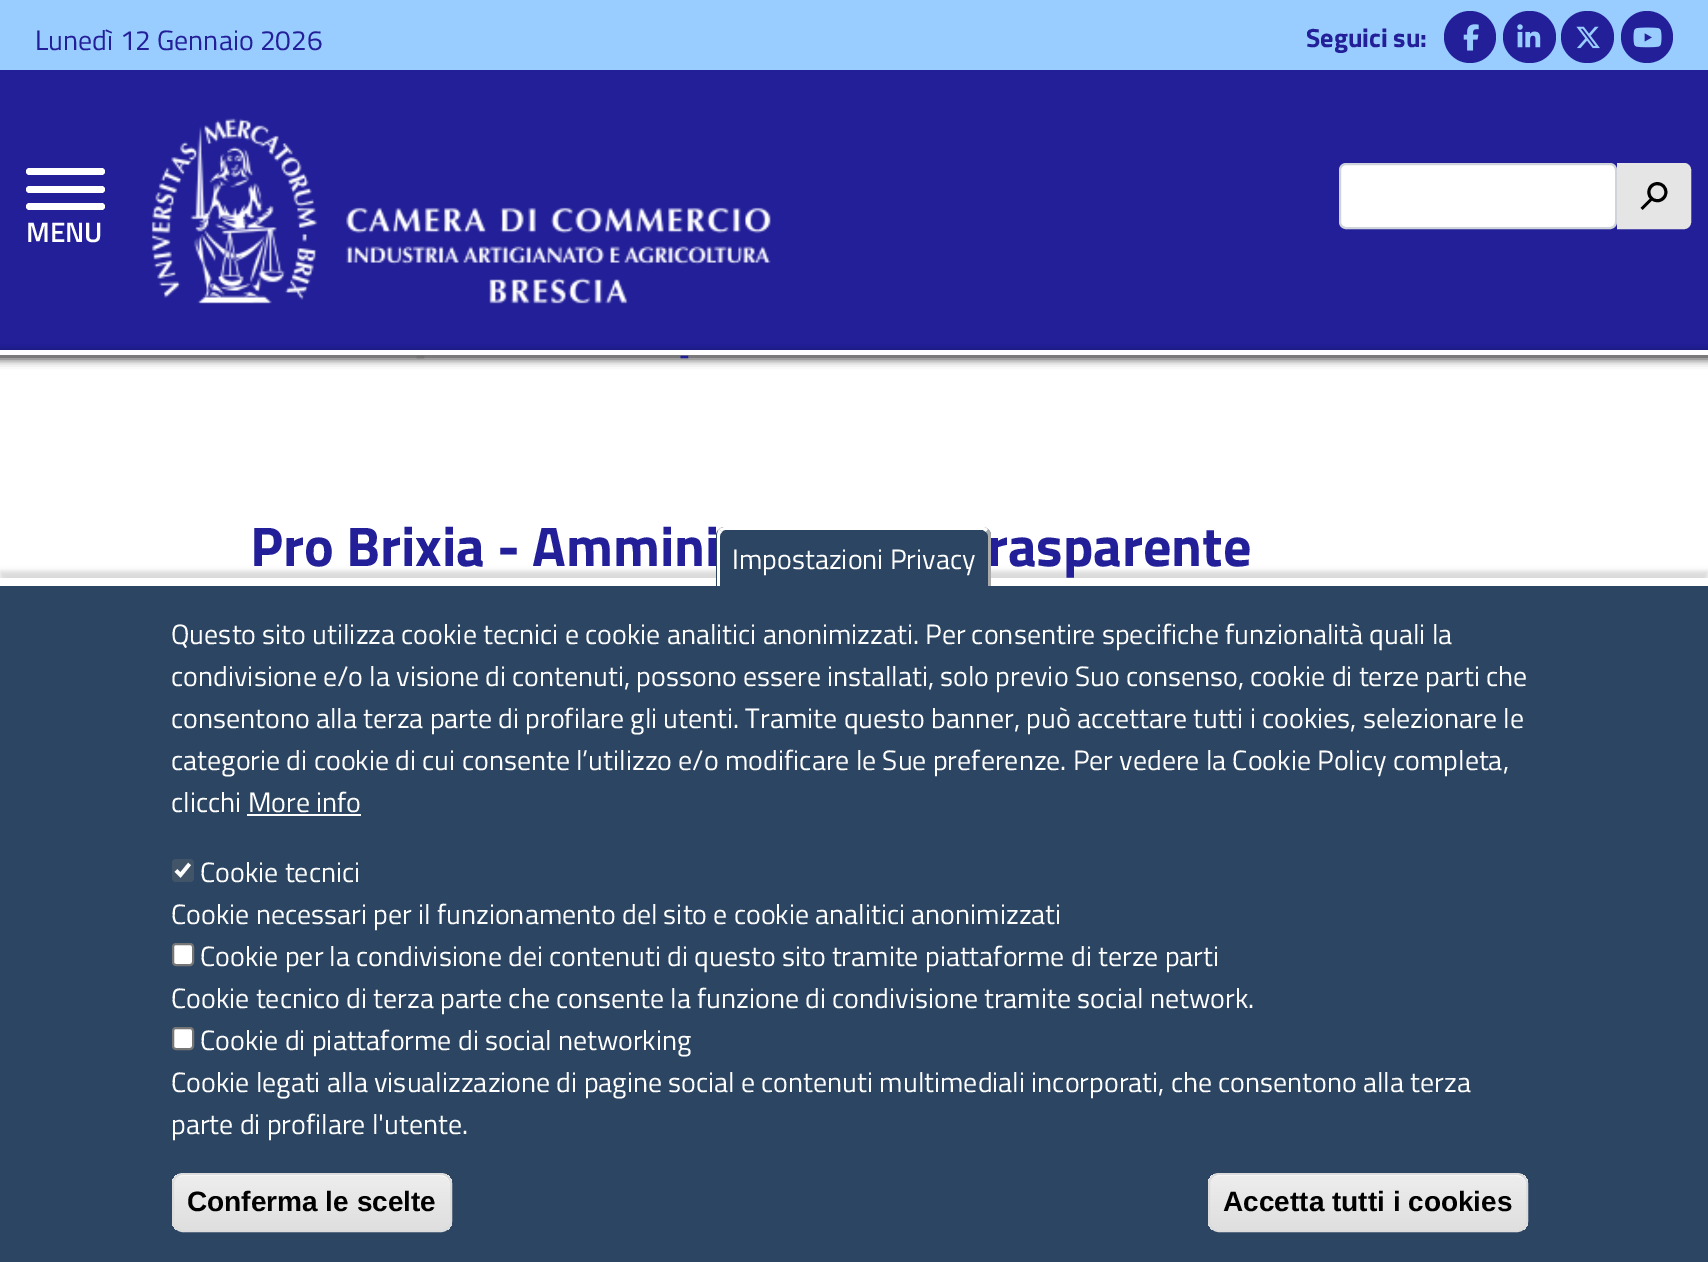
%!PS
<< /PageSize [1708 1262] /PageUsesTransparency true >> setpagedevice
/rgb { 3 { 255 div 3 1 roll } repeat setrgbcolor } def
/font { [ exch dup neg 0 0 3 -1 roll 0 0 ] selectfont } def
/text { moveto show } def
/alpha { dup .setfillconstantalpha .setstrokeconstantalpha } def
/circle { newpath 0 360 arc closepath } def
/roundrect { 5 dict begin { /r /h /w /y /x } { exch def } forall
  x r add y moveto x w add y 2 copy h add r arct x w add y h add x 1 index r arct
  x y h add x y r arct x y 2 copy exch w add exch r arct closepath end } def
/shadow { 12 dict begin { /a /b /q /h /w /y /x } { exch def } forall gsave /was 0 def
  9 -2 -9 { dup b mul 4 div /e exch def 1 sub .425 mul 2.718 exch exp 1 add a .99 .min exch div /now exch def
    1 1 now sub 1 was sub div sub alpha /was now def
    w h .min e 2 mul add 0 gt { x e sub y e sub w e 2 mul add h e 2 mul add
      q e add b .6 mul add w h .min 2 div e add .min 0 .max roundrect fill } if } for grestore end } def
/picture { 5 dict begin { /h /w /y /x /name } { exch def } forall
  gsave x y translate w h scale
  w h 8 [w 0 0 h 0 0] name (r) file false 3 colorimage grestore end } def
0 .pushpdf14devicefilter
0 1262 translate 1 -1 scale
4 setmiterlimit
255 255 255 rgb
0 0 1708 1262 rectfill
153 204 255 rgb
0 0 1708 70 rectfill
34 31 153 rgb
1470 37 26 circle fill
(img_01.rgb) 1463 24 16 27 picture
1503 11 53 52 26 roundrect fill
(img_02.rgb) 1517 24 24 24 picture
1561 11 53 52 26 roundrect fill
(img_03.rgb) 1576 26 24 23 picture
1647 37 26 circle fill
(img_04.rgb) 1633 27 29 21 picture
0 70 1708 280 rectfill
(img_05.rgb) 151 118 620 186 picture
255 255 255 rgb
1340 164 276 64 6 roundrect gsave fill grestore
206 212 218 rgb
2 setlinewidth
stroke
229 229 229 rgb
1618 164 moveto 66 0 rlineto 3.5 0 6 2.5 6 6 rcurveto 0 52 rlineto 0 3.5 -2.5 6 -6 6 rcurveto -66 0 rlineto closepath gsave fill grestore
stroke
255 255 255 rgb
26 203 79 7 3.5 roundrect fill
26 168 79 7 3.5 roundrect fill
26 186 79 7 3.5 roundrect fill
0 0 0 rgb
-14 354 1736 5 0 4.5 0.75 shadow
255 255 255 rgb
0 350 1708 5 rectfill
180 180 180 rgb
0 571 1708 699 0 2.5 0.5 shadow
43 69 98 rgb
0 586 1708 676 rectfill
255 255 255 rgb
0 578 1708 8 rectfill
247 814 114 2 rectfill
66 84 104 rgb
172 859 22 23 4 roundrect fill
255 255 255 rgb
3.6 setlinewidth
176 870.5 moveto 4.5 4.5 rlineto 9 -11 rlineto stroke
173 944 20 21 3 roundrect gsave fill grestore
118 118 118 rgb
2 setlinewidth
stroke
255 255 255 rgb
173 1028 20 21 3 roundrect gsave fill grestore
118 118 118 rgb
stroke
gsave
172 1173 280 59 11 roundrect clip newpath
gsave 172 1174 moveto 280 0 rlineto 0 56 rlineto -280 0 rlineto closepath clip newpath
<< /ShadingType 2 /ColorSpace /DeviceRGB /Coords [312 1174 312 1230] /Extend [true true] /Function << /FunctionType 3 /Domain [0 1] /Functions [<< /FunctionType 2 /Domain [0 1] /C0 [0.929 0.929 0.929] /C1 [0.929 0.929 0.929] /N 1 >> << /FunctionType 2 /Domain [0 1] /C0 [0.929 0.929 0.929] /C1 [0.875 0.875 0.875] /N 1 >>] /Bounds [0.05] /Encode [0 1 0 1] >> >> shfill grestore
grestore
255 255 255 rgb
182 1176 moveto 259 0 rlineto 5 0 9 4 9 9 rcurveto 0 -2 rlineto 0 -5 -4 -9 -9 -9 rcurveto -259 0 rlineto -5 0 -9 4 -9 9 rcurveto 0 2 rlineto 0 -5 4 -9 9 -9 rcurveto closepath fill
220 220 220 rgb
173 1174 278 57 10 roundrect stroke
gsave
1208 1173 320 59 11 roundrect clip newpath
gsave 1208 1174 moveto 320 0 rlineto 0 56 rlineto -320 0 rlineto closepath clip newpath
<< /ShadingType 2 /ColorSpace /DeviceRGB /Coords [1368 1174 1368 1230] /Extend [true true] /Function << /FunctionType 3 /Domain [0 1] /Functions [<< /FunctionType 2 /Domain [0 1] /C0 [0.929 0.929 0.929] /C1 [0.929 0.929 0.929] /N 1 >> << /FunctionType 2 /Domain [0 1] /C0 [0.929 0.929 0.929] /C1 [0.875 0.875 0.875] /N 1 >>] /Bounds [0.05] /Encode [0 1 0 1] >> >> shfill grestore
grestore
255 255 255 rgb
1218 1176 moveto 299 0 rlineto 5 0 9 4 9 9 rcurveto 0 -2 rlineto 0 -5 -4 -9 -9 -9 rcurveto -299 0 rlineto -5 0 -9 4 -9 9 rcurveto 0 2 rlineto 0 -5 4 -9 9 -9 rcurveto closepath fill
220 220 220 rgb
1209 1174 318 57 10 roundrect stroke
/TitilliumWeb-Regular 28 font
34 31 153 rgb
(Lunedì 12 Gennaio 2026) 35 50 text
/TitilliumWeb-Bold 26.25 font
(Seguici su:) 1306 47 text
/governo-Regular 28 font
0 0 0 rgb
(h) 1640 210 text
/TitilliumWeb-SemiBold 28 font
255 255 255 rgb
(MENU) 26 242 text
/TitilliumWeb-SemiBold 26 font
112 112 112 rgb
(-) 415 364 text
34 31 153 rgb
(-) 679 364 text
/TitilliumWeb-Bold 56 font
(Pro Brixia - Ammini) 250 566 text
(rasparente) 987 566 text
43 69 98 rgb
725 527 moveto 257 0 rlineto 5 0 9 4 9 9 rcurveto 0 50 rlineto -275 0 rlineto 0 -50 rlineto 0 -5 4 -9 9 -9 rcurveto closepath fill
255 255 255 rgb
725 527 moveto 258 0 rlineto 2 0 4 1 5 3 rcurveto -2 2 rlineto -3 -2 rlineto -258 0 rlineto -1 0 -3 1 -3 2 rcurveto -3 -3 rlineto 2 -1 4 -2 6 -2 rcurveto closepath fill
170 170 170 rgb
986 532 moveto 1 1 2 2 2 4 rcurveto 0 50 rlineto 3 0 rlineto 0 -50 rlineto 0 -3 -1 -5 -3 -6 rcurveto closepath fill
255 255 255 rgb
719 529 moveto 3 3 rlineto -1 1 -2 2 -2 4 rcurveto 0 50 rlineto -3 0 rlineto 0 -50 rlineto 0 -3 1 -5 2 -7 rcurveto closepath fill
/TitilliumWeb-Regular 28 font
(Impostazioni Privacy) 732 569 text
(Questo sito utilizza cookie tecnici e cookie analitici anonimizzati. Per consentire specifiche funzionalità quali la) 171 644 text
(condivisione e/o la visione di contenuti, possono essere installati, solo previo Suo consenso, cookie di terze parti che) 171 686 text
(consentono alla terza parte di profilare gli utenti. Tramite questo banner, può accettare tutti i cookies, selezionare le) 171 728 text
(categorie di cookie di cui consente l’utilizzo e/o modificare le Sue preferenze. Per vedere la Cookie Policy completa,) 171 770 text
(clicchi More info) 171 812 text
(Cookie tecnici) 200 882 text
(Cookie necessari per il funzionamento del sito e cookie analitici anonimizzati) 171 924 text
(Cookie per la condivisione dei contenuti di questo sito tramite piattaforme di terze parti) 200 966 text
(Cookie tecnico di terza parte che consente la funzione di condivisione tramite social network.) 171 1008 text
(Cookie di piattaforme di social networking) 200 1050 text
(Cookie legati alla visualizzazione di pagine social e contenuti multimediali incorporati, che consentono alla terza) 171 1092 text
(parte di profilare l'utente.) 171 1134 text
/LiberationSans-Bold 28 font
0 0 0 rgb
(Conferma le scelte) 187 1211 text
(Accetta tutti i cookies) 1223 1211 text
.poppdf14devicefilter showpage
